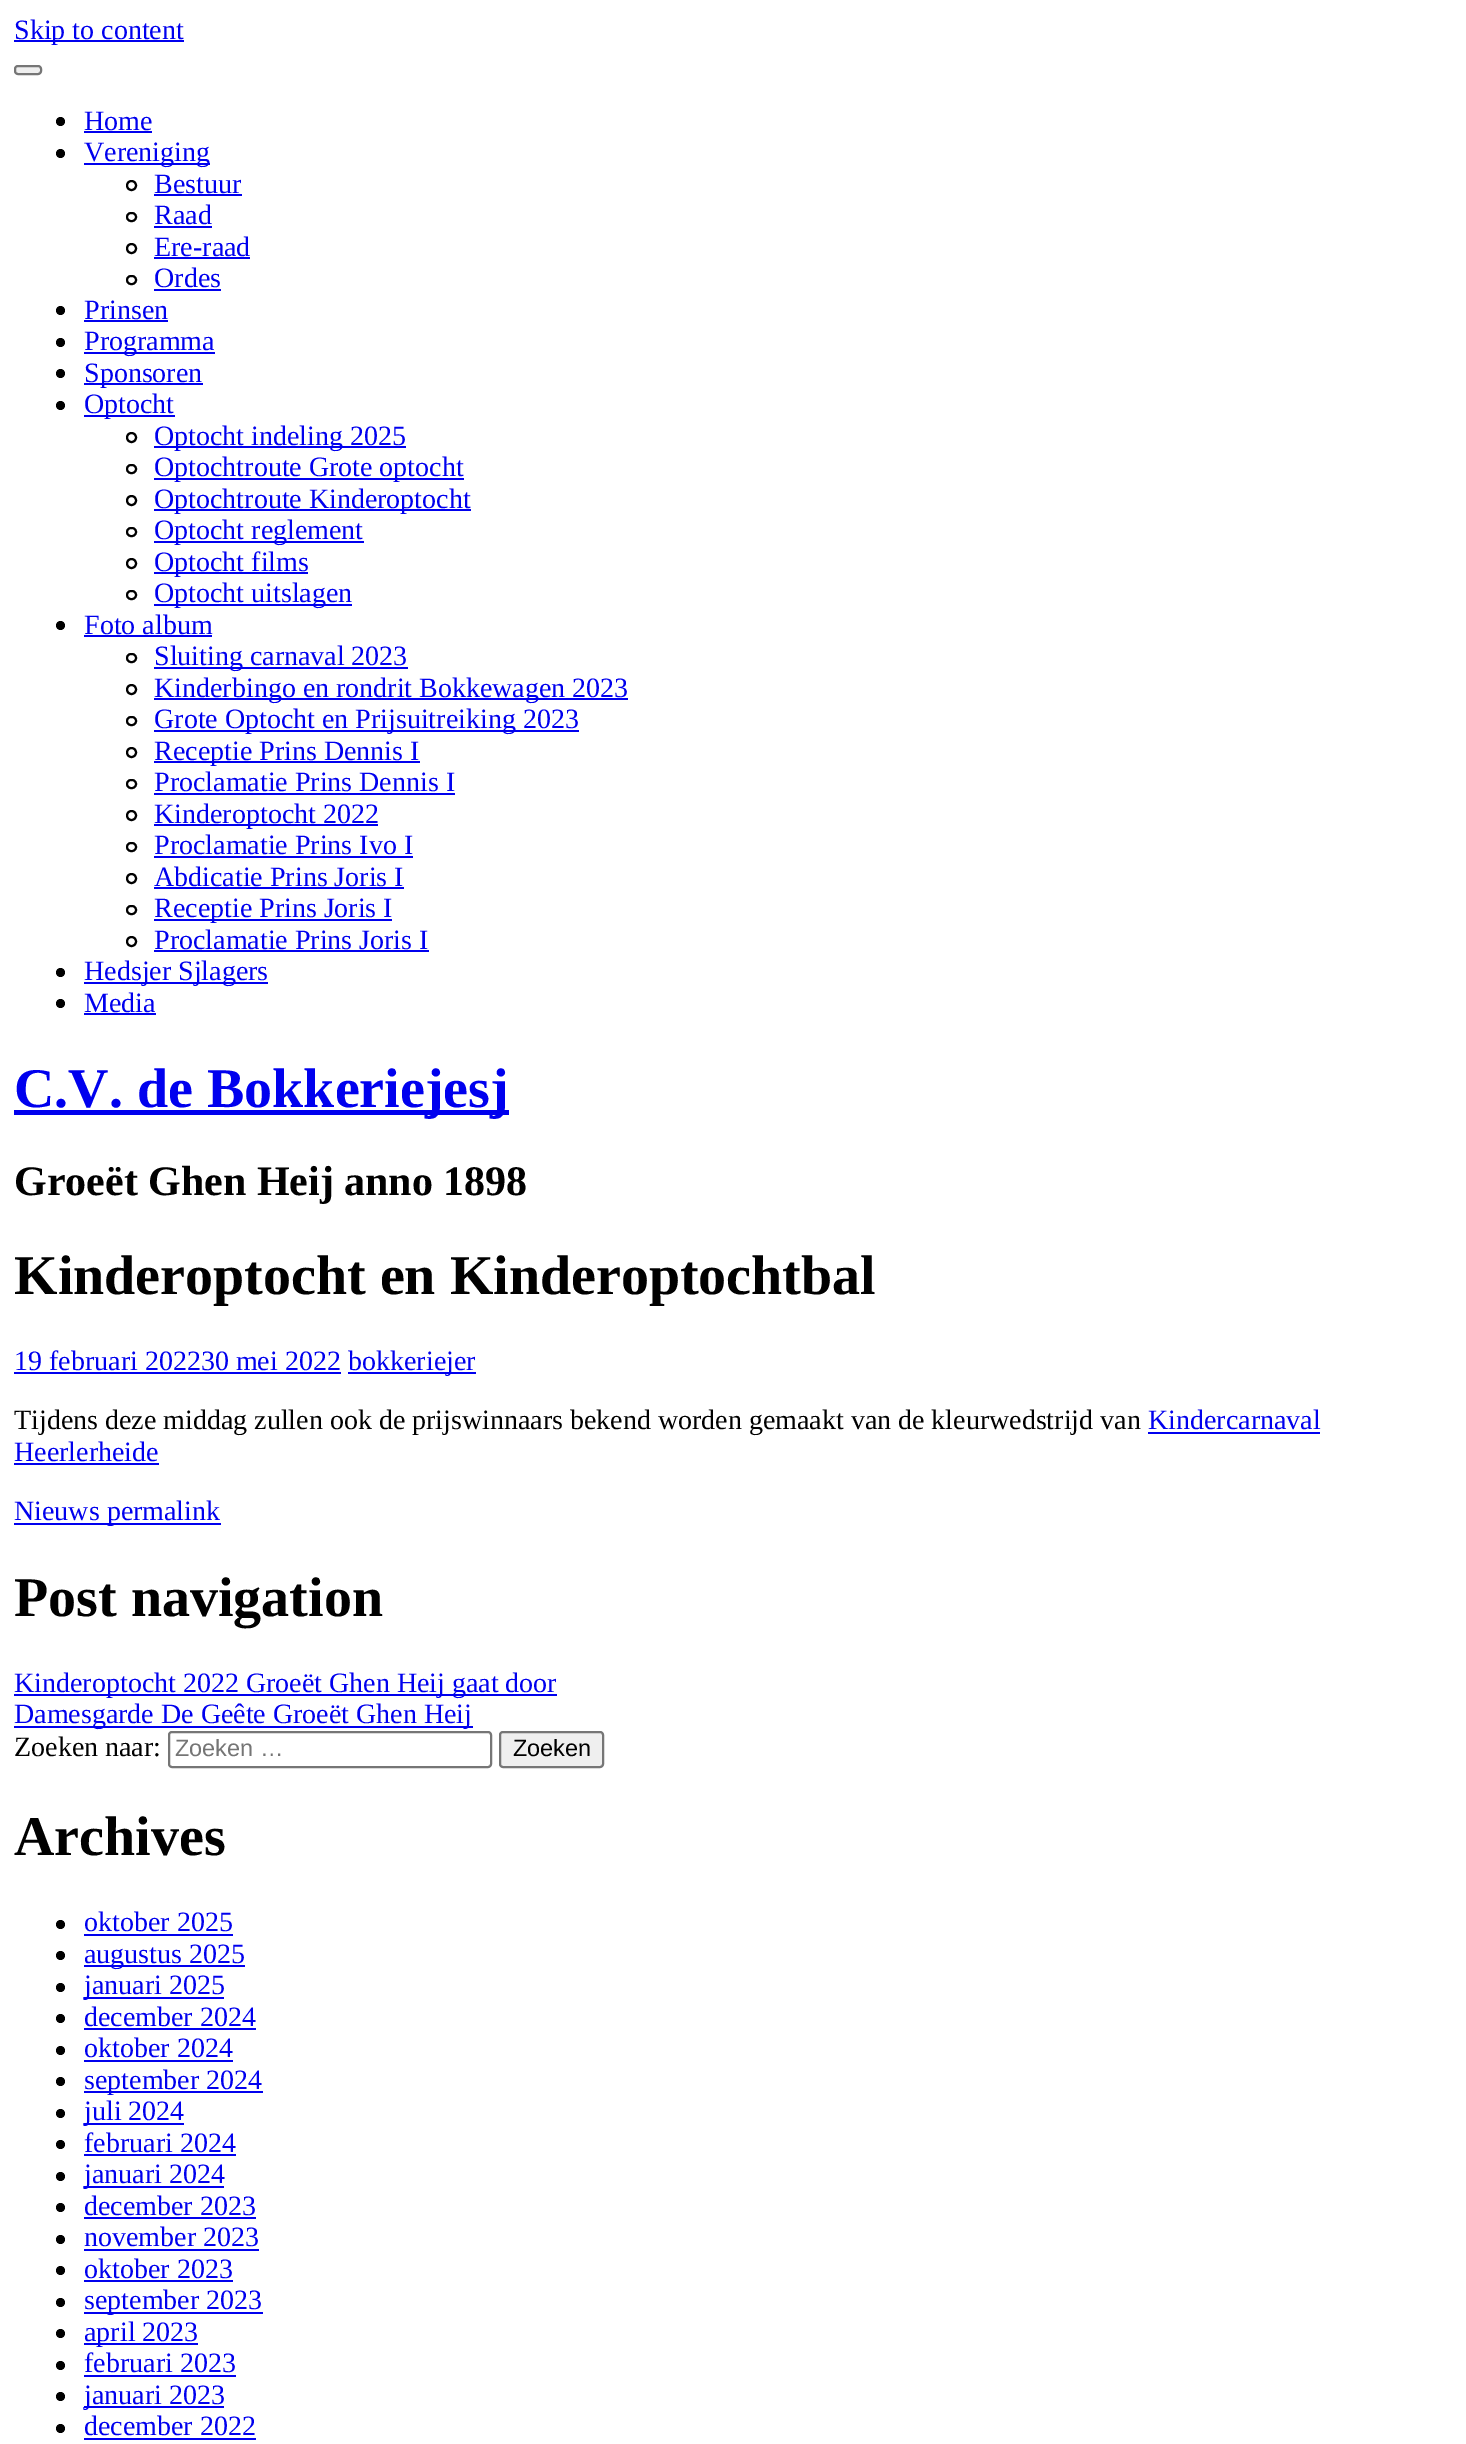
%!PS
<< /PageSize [1466 2444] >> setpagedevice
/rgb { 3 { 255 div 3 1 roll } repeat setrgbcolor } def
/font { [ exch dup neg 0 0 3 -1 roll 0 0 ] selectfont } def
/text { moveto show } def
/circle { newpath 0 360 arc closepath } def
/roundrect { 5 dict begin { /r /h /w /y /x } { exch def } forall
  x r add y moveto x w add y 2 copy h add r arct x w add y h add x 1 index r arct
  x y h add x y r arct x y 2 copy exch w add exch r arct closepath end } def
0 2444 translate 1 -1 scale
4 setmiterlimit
255 255 255 rgb
0 0 1466 2444 rectfill
0 0 238 rgb
14 40 170 2 rectfill
239 239 239 rgb
15 66 26 8 3 roundrect gsave fill grestore
118 118 118 rgb
2 setlinewidth
stroke
0 0 0 rgb
60.5 121.5 4.5 circle fill
0 0 238 rgb
84 131 68 2 rectfill
0 0 0 rgb
60.5 153.5 4.5 circle fill
0 0 238 rgb
84 163 126 2 rectfill
0 0 0 rgb
131.5 185.5 4.5 circle stroke
0 0 238 rgb
154 194 88 2 rectfill
0 0 0 rgb
127 213 9 8 4 roundrect stroke
0 0 238 rgb
154 226 58 2 rectfill
0 0 0 rgb
131.5 248.5 4.5 circle stroke
0 0 238 rgb
154 257 96 2 rectfill
0 0 0 rgb
127 276 9 8 4 roundrect stroke
0 0 238 rgb
154 289 67 2 rectfill
0 0 0 rgb
60.5 310.5 4.5 circle fill
0 0 238 rgb
84 320 84 2 rectfill
0 0 0 rgb
60.5 342.5 4.5 circle fill
0 0 238 rgb
84 352 131 2 rectfill
0 0 0 rgb
60.5 373.5 4.5 circle fill
0 0 238 rgb
84 383 119 2 rectfill
0 0 0 rgb
60.5 405.5 4.5 circle fill
0 0 238 rgb
84 415 91 2 rectfill
0 0 0 rgb
131.5 437.5 4.5 circle stroke
0 0 238 rgb
154 446 252 2 rectfill
0 0 0 rgb
127 465 9 8 4 roundrect stroke
0 0 238 rgb
154 478 310 2 rectfill
0 0 0 rgb
131.5 500.5 4.5 circle stroke
0 0 238 rgb
154 509 317 2 rectfill
0 0 0 rgb
127 528 9 8 4 roundrect stroke
0 0 238 rgb
154 541 210 2 rectfill
0 0 0 rgb
131.5 563.5 4.5 circle stroke
0 0 238 rgb
154 572 154 2 rectfill
0 0 0 rgb
127 591 9 8 4 roundrect stroke
0 0 238 rgb
154 604 198 2 rectfill
0 0 0 rgb
60.5 625.5 4.5 circle fill
0 0 238 rgb
84 635 128 2 rectfill
0 0 0 rgb
127 654 9 8 4 roundrect stroke
0 0 238 rgb
154 667 254 2 rectfill
0 0 0 rgb
131.5 689.5 4.5 circle stroke
0 0 238 rgb
154 698 474 2 rectfill
0 0 0 rgb
127 717 9 8 4 roundrect stroke
0 0 238 rgb
154 730 425 2 rectfill
0 0 0 rgb
131.5 752.5 4.5 circle stroke
0 0 238 rgb
154 761 266 2 rectfill
0 0 0 rgb
127 780 9 8 4 roundrect stroke
0 0 238 rgb
154 793 301 2 rectfill
0 0 0 rgb
131.5 815.5 4.5 circle stroke
0 0 238 rgb
154 824 224 2 rectfill
0 0 0 rgb
127 843 9 8 4 roundrect stroke
0 0 238 rgb
154 856 259 2 rectfill
0 0 0 rgb
131.5 878.5 4.5 circle stroke
0 0 238 rgb
154 887 250 2 rectfill
0 0 0 rgb
127 906 9 8 4 roundrect stroke
0 0 238 rgb
154 919 238 2 rectfill
0 0 0 rgb
131.5 941.5 4.5 circle stroke
0 0 238 rgb
154 950 275 2 rectfill
0 0 0 rgb
60.5 972.5 4.5 circle fill
0 0 238 rgb
84 982 184 2 rectfill
0 0 0 rgb
60.5 1003.5 4.5 circle fill
0 0 238 rgb
84 1013 72 2 rectfill
14 1110 495 5 rectfill
14 1372 327 2 rectfill
348 1372 128 2 rectfill
1148 1432 172 2 rectfill
14 1463 145 2 rectfill
14 1523 207 2 rectfill
14 1694 543 2 rectfill
14 1726 459 2 rectfill
118 118 118 rgb
169 1732 322 35 3 roundrect stroke
239 239 239 rgb
500 1732 103 35 3 roundrect gsave fill grestore
118 118 118 rgb
stroke
0 0 0 rgb
60.5 1924.5 4.5 circle fill
0 0 238 rgb
84 1934 149 2 rectfill
0 0 0 rgb
60.5 1955.5 4.5 circle fill
0 0 238 rgb
84 1965 161 2 rectfill
0 0 0 rgb
60.5 1987.5 4.5 circle fill
0 0 238 rgb
84 1997 140 2 rectfill
0 0 0 rgb
60.5 2018.5 4.5 circle fill
0 0 238 rgb
84 2028 172 2 rectfill
0 0 0 rgb
60.5 2050.5 4.5 circle fill
0 0 238 rgb
84 2060 149 2 rectfill
0 0 0 rgb
60.5 2081.5 4.5 circle fill
0 0 238 rgb
84 2091 179 2 rectfill
0 0 0 rgb
60.5 2113.5 4.5 circle fill
0 0 238 rgb
84 2123 100 2 rectfill
0 0 0 rgb
60.5 2144.5 4.5 circle fill
0 0 238 rgb
84 2154 152 2 rectfill
0 0 0 rgb
60.5 2176.5 4.5 circle fill
0 0 238 rgb
84 2186 140 2 rectfill
0 0 0 rgb
60.5 2207.5 4.5 circle fill
0 0 238 rgb
84 2217 172 2 rectfill
0 0 0 rgb
60.5 2239.5 4.5 circle fill
0 0 238 rgb
84 2249 175 2 rectfill
0 0 0 rgb
60.5 2270.5 4.5 circle fill
0 0 238 rgb
84 2280 149 2 rectfill
0 0 0 rgb
60.5 2302.5 4.5 circle fill
0 0 238 rgb
84 2312 179 2 rectfill
0 0 0 rgb
60.5 2333.5 4.5 circle fill
0 0 238 rgb
84 2343 114 2 rectfill
0 0 0 rgb
60.5 2365.5 4.5 circle fill
0 0 238 rgb
84 2375 152 2 rectfill
0 0 0 rgb
60.5 2396.5 4.5 circle fill
0 0 238 rgb
84 2406 140 2 rectfill
0 0 0 rgb
60.5 2428.5 4.5 circle fill
0 0 238 rgb
84 2438 172 2 rectfill
/LiberationSerif-Regular 28 font
(Skip to content) 14 39 text
(Home) 84 130 text
(Vereniging) 84 161 text
(Bestuur) 154 193 text
(Raad) 154 224 text
(Ere-raad) 154 256 text
(Ordes) 154 287 text
(Prinsen) 84 319 text
(Programma) 84 350 text
(Sponsoren) 84 382 text
(Optocht) 84 413 text
(Optocht indeling 2025) 154 445 text
(Optochtroute Grote optocht) 154 476 text
(Optochtroute Kinderoptocht) 154 508 text
(Optocht reglement) 154 539 text
(Optocht films) 154 571 text
(Optocht uitslagen) 154 602 text
(Foto album) 84 634 text
(Sluiting carnaval 2023) 154 665 text
(Kinderbingo en rondrit Bokkewagen 2023) 154 697 text
(Grote Optocht en Prijsuitreiking 2023) 154 728 text
(Receptie Prins Dennis I) 154 760 text
(Proclamatie Prins Dennis I) 154 791 text
(Kinderoptocht 2022) 154 823 text
(Proclamatie Prins Ivo I) 154 854 text
(Abdicatie Prins Joris I) 154 886 text
(Receptie Prins Joris I) 154 917 text
(Proclamatie Prins Joris I) 154 949 text
(Hedsjer Sjlagers) 84 980 text
(Media) 84 1012 text
/LiberationSerif-Bold 56 font
(C.V. de Bokkeriejesj) 14 1107 text
/LiberationSerif-Bold 42 font
0 0 0 rgb
(Groeët Ghen Heij anno 1898) 14 1195 text
/LiberationSerif-Bold 56 font
(Kinderoptocht en Kinderoptochtbal) 14 1294 text
/LiberationSerif-Regular 28 font
0 0 238 rgb
(19 februari 202230 mei 2022) 14 1370 text
(bokkeriejer) 348 1370 text
0 0 0 rgb
(Tijdens deze middag zullen ook de prijswinnaars bekend worden gemaakt van de kleurwedstrijd van) 14 1429 text
0 0 238 rgb
(Kindercarnaval) 1148 1429 text
(Heerlerheide) 14 1461 text
(Nieuws permalink) 14 1520 text
/LiberationSerif-Bold 56 font
0 0 0 rgb
(Post navigation) 14 1616 text
/LiberationSerif-Regular 28 font
0 0 238 rgb
(Kinderoptocht 2022 Groeët Ghen Heij gaat door) 14 1692 text
(Damesgarde De Geête Groeët Ghen Heij) 14 1723 text
0 0 0 rgb
(Zoeken naar:) 14 1756 text
/LiberationSans-Regular 23.5 font
117 117 117 rgb
(Zoeken …) 175 1756 text
0 0 0 rgb
(Zoeken) 513 1756 text
/LiberationSerif-Bold 56 font
(Archives) 14 1855 text
/LiberationSerif-Regular 28 font
0 0 238 rgb
(oktober 2025) 84 1931 text
(augustus 2025) 84 1963 text
(januari 2025) 84 1994 text
(december 2024) 84 2026 text
(oktober 2024) 84 2057 text
(september 2024) 84 2089 text
(juli 2024) 84 2120 text
(februari 2024) 84 2152 text
(januari 2024) 84 2183 text
(december 2023) 84 2215 text
(november 2023) 84 2246 text
(oktober 2023) 84 2278 text
(september 2023) 84 2309 text
(april 2023) 84 2341 text
(februari 2023) 84 2372 text
(januari 2023) 84 2404 text
(december 2022) 84 2435 text
showpage
